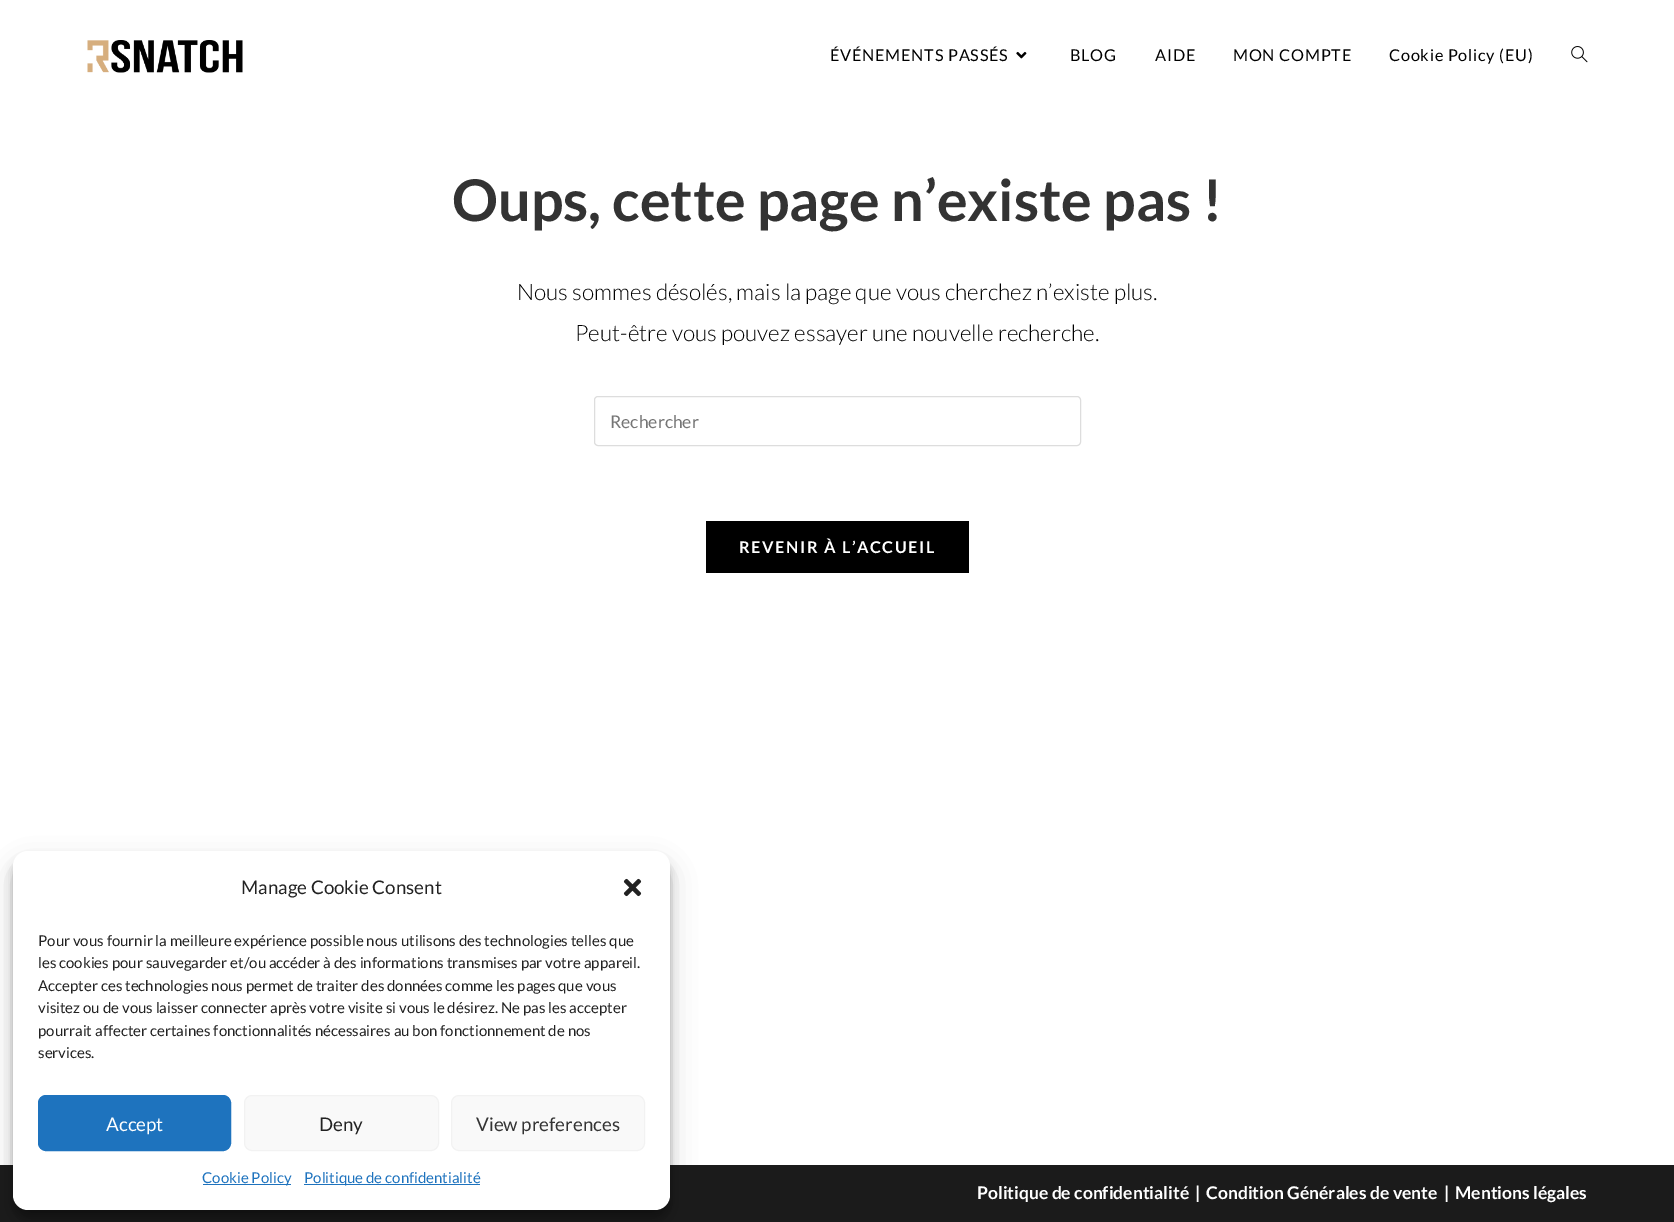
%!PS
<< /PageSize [1674 1222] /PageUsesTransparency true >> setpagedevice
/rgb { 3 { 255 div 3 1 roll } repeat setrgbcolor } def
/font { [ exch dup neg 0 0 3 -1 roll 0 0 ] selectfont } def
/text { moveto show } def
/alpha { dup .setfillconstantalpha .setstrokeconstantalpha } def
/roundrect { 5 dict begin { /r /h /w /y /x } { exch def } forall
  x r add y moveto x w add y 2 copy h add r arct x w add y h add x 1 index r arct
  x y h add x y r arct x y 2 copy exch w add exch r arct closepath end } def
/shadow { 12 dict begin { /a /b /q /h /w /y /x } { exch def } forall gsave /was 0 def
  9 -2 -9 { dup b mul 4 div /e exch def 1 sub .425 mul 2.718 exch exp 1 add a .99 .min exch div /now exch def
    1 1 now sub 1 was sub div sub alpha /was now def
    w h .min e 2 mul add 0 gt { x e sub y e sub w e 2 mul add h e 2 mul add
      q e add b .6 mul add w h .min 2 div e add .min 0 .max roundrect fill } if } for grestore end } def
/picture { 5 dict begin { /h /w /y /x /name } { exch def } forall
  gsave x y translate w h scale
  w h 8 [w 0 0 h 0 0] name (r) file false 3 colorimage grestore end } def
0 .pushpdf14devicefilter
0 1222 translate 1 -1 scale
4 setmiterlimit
255 255 255 rgb
0 0 1674 1222 rectfill
27 27 27 rgb
0 1165 1674 57 rectfill
0 0 0 rgb
13 859 657 359 15 4 0.23 shadow
13 864 657 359 15 12.5 0.19 shadow
255 255 255 rgb
13 851 657 359 15 roundrect fill
(img_01.rgb) 623 878 19 19 picture
30 115 190 rgb
38.5 1095.5 192 55 7.5 roundrect gsave fill grestore
stroke
249 249 249 rgb
244.5 1095.5 194 55 7.5 roundrect gsave fill grestore
242 242 242 rgb
stroke
249 249 249 rgb
451.5 1095.5 193 55 7.5 roundrect gsave fill grestore
242 242 242 rgb
stroke
30 115 190 rgb
203 1184 88 1 rectfill
304 1184 176 1 rectfill
(img_02.rgb) 87 40 156 33 picture
(img_03.rgb) 1016 51 11 8 picture
(img_04.rgb) 1571 46 17 17 picture
221 221 221 rgb
594.5 396.5 486 49 3.5 roundrect stroke
0 0 0 rgb
706 521 263 52 rectfill
/Lato-Regular 18.75 font
34 34 34 rgb
(Manage Cookie Consent) 241 894 text
/Lato-Regular 15 font
(Pour vous fournir la meilleure expérience possible nous utilisons des technologies telles que) 38 946 text
(les cookies pour sauvegarder et/ou accéder à des informations transmises par votre appareil.) 38 968 text
(Accepter ces technologies nous permet de traiter des données comme les pages que vous) 38 991 text
(visitez ou de vous laisser connecter après votre visite si vous le désirez. Ne pas les accepter) 38 1013 text
(pourrait affecter certaines fonctionnalités nécessaires au bon fonctionnement de nos) 38 1036 text
(services.) 38 1058 text
/Lato-Regular 18.75 font
255 255 255 rgb
(Accept) 106 1131 text
34 34 34 rgb
(Deny) 319 1131 text
51 51 51 rgb
(View preferences) 476 1131 text
/Lato-Regular 15 font
30 115 190 rgb
(Cookie Policy) 202 1183 text
(Politique de confidentialité) 304 1183 text
/Lato-Regular 16.25 font
0 0 0 rgb
830 61 moveto 0.75 0 (ÉVÉNEMENTS PASSÉS) ashow
1070 61 moveto 0.75 0 (BLOG) ashow
1155 61 moveto 0.75 0 (AIDE) ashow
1233 61 moveto 0.75 0 (MON COMPTE) ashow
1389 61 moveto 0.75 0 (Cookie Policy \(EU\)) ashow
/Lato-Bold 57.5 font
51 51 51 rgb
(Oups, cette page n’existe pas !) 452 221 text
/Lato-Light 22.5 font
0 0 0 rgb
(Nous sommes désolés, mais la page que vous cherchez n’existe plus.) 517 300 text
(Peut-être vous pouvez essayer une nouvelle recherche.) 575 341 text
/Lato-Regular 17.5 font
117 117 117 rgb
(Rechercher) 610 428 text
/Lato-Bold 16.25 font
255 255 255 rgb
739 553 moveto 1.6 0 (REVENIR À L’ACCUEIL) ashow
/Lato-Bold 17.5 font
(Politique de confidentialité) 977 1199 text
(|) 1195 1199 text
(Condition Générales de vente) 1206 1199 text
(|) 1444 1199 text
(Mentions légales) 1455 1199 text
.poppdf14devicefilter showpage
